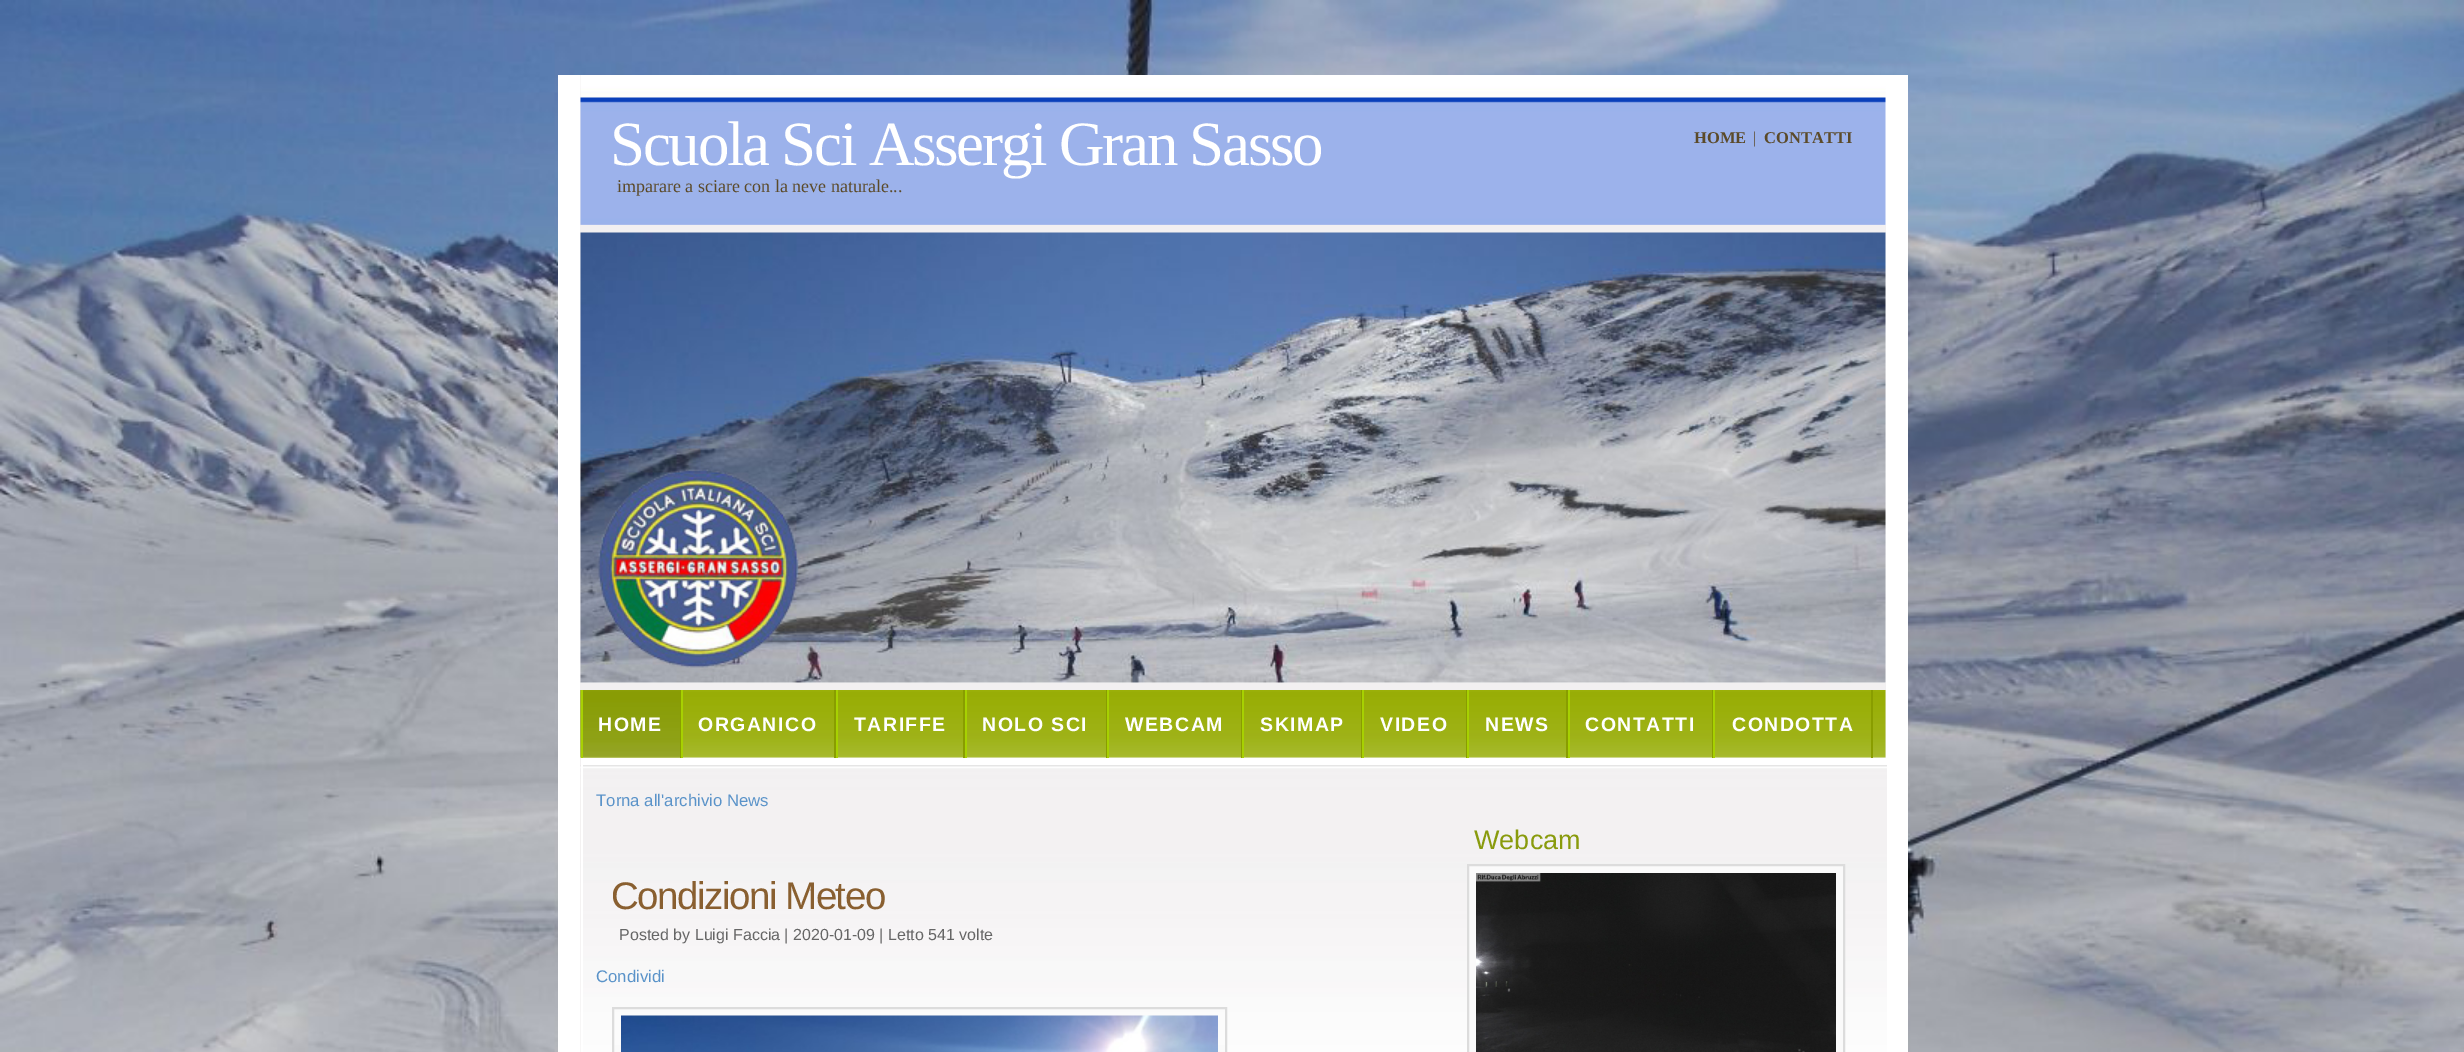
%!PS
<< /PageSize [2464 1052] >> setpagedevice
/rgb { 3 { 255 div 3 1 roll } repeat setrgbcolor } def
/font { [ exch dup neg 0 0 3 -1 roll 0 0 ] selectfont } def
/text { moveto show } def
/picture { 5 dict begin { /h /w /y /x /name } { exch def } forall
  gsave x y translate w h scale
  w h 8 [w 0 0 h 0 0] name (r) file false 3 colorimage grestore end } def
0 1052 translate 1 -1 scale
4 setmiterlimit
255 255 255 rgb
0 0 2464 1052 rectfill
(img_01.rgb) 0 0 2464 1052 picture
558 75 1350 977 rectfill
242 240 241 rgb
580 75 1306 977 rectfill
255 255 255 rgb
1885 75 1 150 rectfill
(img_02.rgb) 580 75 1306 150 picture
250 250 250 rgb
581 233 1305 450 rectfill
(img_03.rgb) 580 232 1306 451 picture
(img_04.rgb) 580 690 1306 68 picture
(img_05.rgb) 580 690 100 68 picture
137 157 0 rgb
680 690 1 68 rectfill
167 209 1 rgb
581 690 2 68 rectfill
137 157 0 rgb
834 690 2 68 rectfill
167 209 1 rgb
681 690 2 68 rectfill
137 157 0 rgb
963 690 2 68 rectfill
167 209 1 rgb
836 690 2 68 rectfill
137 157 0 rgb
1106 690 1 68 rectfill
167 209 1 rgb
965 690 2 68 rectfill
137 157 0 rgb
1241 690 1 68 rectfill
167 209 1 rgb
1107 690 2 68 rectfill
137 157 0 rgb
1361 690 1 68 rectfill
167 209 1 rgb
1242 690 2 68 rectfill
137 157 0 rgb
1466 690 1 68 rectfill
167 209 1 rgb
1362 690 2 68 rectfill
137 157 0 rgb
1566 690 2 68 rectfill
167 209 1 rgb
1467 690 2 68 rectfill
137 157 0 rgb
1712 690 1 68 rectfill
167 209 1 rgb
1568 690 2 68 rectfill
137 157 0 rgb
1871 690 2 68 rectfill
167 209 1 rgb
1713 690 2 68 rectfill
(img_06.rgb) 580 765 1307 287 picture
255 255 255 rgb
581 758 1308 7 rectfill
581 758 2 294 rectfill
250 250 250 rgb
614 1045 611 7 rectfill
220 220 220 rgb
2 setlinewidth
613 1008 613 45 rectstroke
(img_07.rgb) 621 1015 597 37 picture
250 250 250 rgb
1468 865 moveto 376 0 rlineto 0 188 rlineto -376 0 rlineto closepath gsave fill grestore
220 220 220 rgb
stroke
(img_08.rgb) 1476 873 360 179 picture
/LiberationSerif-Regular 63 font
255 255 255 rgb
610 165 moveto -2.25 0 (Scuola Sci Assergi Gran Sasso) ashow
/LiberationSerif-Bold 16.5 font
91 74 41 rgb
(HOME) 1694 143 text
/LiberationSerif-Regular 16.5 font
(|) 1753 143 text
/LiberationSerif-Bold 16.5 font
(CONTATTI) 1764 143 text
/LiberationSerif-Regular 18 font
(imparare a sciare con la neve naturale...) 617 192 text
/LiberationSans-Bold 19.5 font
255 255 255 rgb
598 731 moveto 1.5 0 (HOME) ashow
698 731 moveto 1.5 0 (ORGANICO) ashow
854 731 moveto 1.5 0 (TARIFFE) ashow
982 731 moveto 1.5 0 (NOLO SCI) ashow
1125 731 moveto 1.5 0 (WEBCAM) ashow
1260 731 moveto 1.5 0 (SKIMAP) ashow
1380 731 moveto 1.5 0 (VIDEO) ashow
1485 731 moveto 1.5 0 (NEWS) ashow
1585 731 moveto 1.5 0 (CONTATTI) ashow
1732 731 moveto 1.5 0 (CONDOTTA) ashow
/LiberationSans-Regular 16.75 font
90 147 201 rgb
(Torna all'archivio News) 596 806 text
/LiberationSans-Regular 38.5 font
137 95 48 rgb
611 909 moveto -1.5 0 (Condizioni Meteo) ashow
/LiberationSans-Regular 16 font
102 102 102 rgb
(Posted by Luigi Faccia | 2020-01-09 | Letto 541 volte) 619 940 text
/LiberationSans-Regular 16.75 font
90 147 201 rgb
(Condividi) 596 982 text
/LiberationSans-Regular 27 font
137 155 13 rgb
(Webcam) 1474 849 text
showpage
